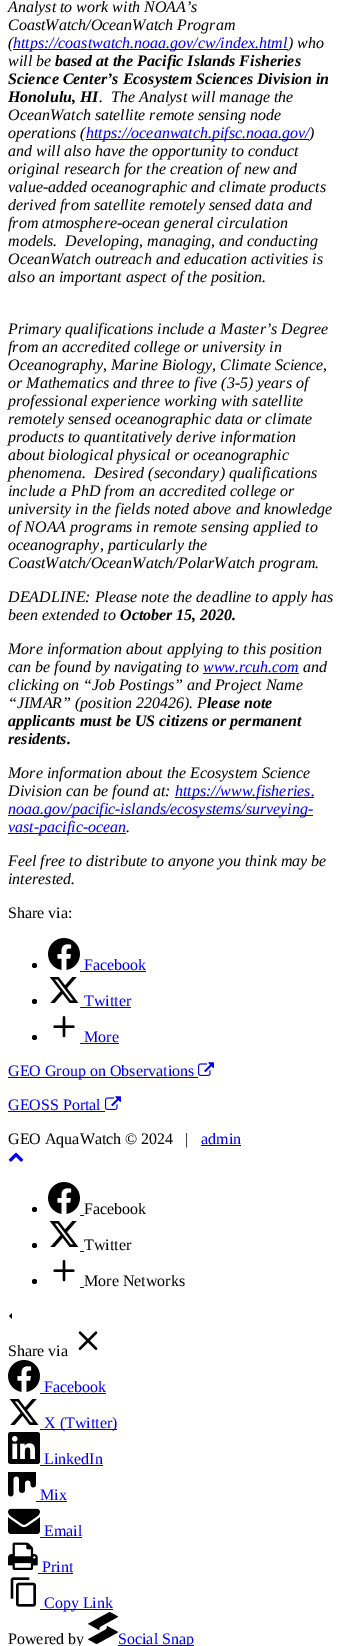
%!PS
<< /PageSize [342 1646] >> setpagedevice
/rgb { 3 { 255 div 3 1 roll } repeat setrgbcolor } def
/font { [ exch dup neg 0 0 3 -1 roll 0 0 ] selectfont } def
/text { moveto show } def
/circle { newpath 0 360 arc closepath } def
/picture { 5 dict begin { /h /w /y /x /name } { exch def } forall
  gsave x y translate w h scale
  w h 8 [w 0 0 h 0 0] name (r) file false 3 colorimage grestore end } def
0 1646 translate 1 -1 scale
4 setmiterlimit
255 255 255 rgb
0 0 342 1646 rectfill
0 0 238 rgb
198 49 90 1 rectfill
203 673 96 1 rectfill
175 797 139 1 rectfill
8 815 162 1 rectfill
170 815 143 1 rectfill
8 833 118 1 rectfill
0 0 0 rgb
34.5 965.5 2.5 circle fill
(img_01.rgb) 48 938 32 32 picture
0 0 238 rgb
80 971 66 1 rectfill
0 0 0 rgb
34.5 1001.5 2.5 circle fill
(img_02.rgb) 49 977 30 26 picture
0 0 238 rgb
80 1007 51 1 rectfill
0 0 0 rgb
34.5 1037.5 2.5 circle fill
(img_03.rgb) 53 1016 22 22 picture
0 0 238 rgb
80 1043 39 1 rectfill
8 1077 190 1 rectfill
(img_04.rgb) 198 1062 16 14 picture
8 1111 97 1 rectfill
(img_04.rgb) 105 1096 16 14 picture
201 1145 40 1 rectfill
(img_05.rgb) 8 1152 16 10 picture
0 0 0 rgb
34.5 1209.5 2.5 circle fill
(img_01.rgb) 48 1182 32 32 picture
0 0 238 rgb
80 1215 4 1 rectfill
0 0 0 rgb
34.5 1245.5 2.5 circle fill
(img_02.rgb) 49 1221 30 26 picture
0 0 238 rgb
80 1251 4 1 rectfill
0 0 0 rgb
34.5 1281.5 2.5 circle fill
(img_03.rgb) 53 1260 22 22 picture
0 0 238 rgb
80 1287 4 1 rectfill
0 0 0 rgb
12 1313 moveto -3 3 rlineto 3 3 rlineto fill
(img_06.rgb) 78 1331 20 19 picture
(img_01.rgb) 8 1360 32 32 picture
0 0 238 rgb
40 1393 66 1 rectfill
(img_02.rgb) 9 1399 30 26 picture
40 1429 77 1 rectfill
(img_07.rgb) 8 1432 32 32 picture
40 1465 63 1 rectfill
(img_08.rgb) 8 1472 28 25 picture
36 1501 31 1 rectfill
(img_09.rgb) 8 1508 32 26 picture
40 1537 42 1 rectfill
(img_10.rgb) 8 1542 30 28 picture
38 1573 35 1 rectfill
(img_11.rgb) 10 1577 26 30 picture
40 1609 73 1 rectfill
(img_12.rgb) 88 1612 30 32 picture
118 1645 76 1 rectfill
/LiberationSerif-Italic 16 font
0 0 0 rgb
(Analyst to work with NOAA’s) 8 12 text
(CoastWatch/OceanWatch Program) 8 30 text
(\() 8 48 text
0 0 238 rgb
13 49 185 1 rectfill
(https://coastwatch.noaa.gov/cw/index.html) 13 48 text
0 0 0 rgb
(\) who) 288 48 text
(will be) 8 66 text
/LiberationSerif-BoldItalic 16 font
(based at the Pacific Islands Fisheries) 55 66 text
(Science Center’s Ecosystem Sciences Division in) 8 84 text
(Honolulu, HI) 8 102 text
/LiberationSerif-Italic 16 font
(.  The Analyst will manage the) 99 102 text
(OceanWatch satellite remote sensing node) 8 120 text
(operations \() 8 138 text
0 0 238 rgb
86 139 223 1 rectfill
(https://oceanwatch.pifsc.noaa.gov/) 86 138 text
0 0 0 rgb
(\)) 309 138 text
(and will also have the opportunity to conduct) 8 156 text
(original research for the creation of new and) 8 174 text
(value-added oceanographic and climate products) 8 192 text
(derived from satellite remotely sensed data and) 8 210 text
(from atmosphere-ocean general circulation) 8 228 text
(models.  Developing, managing, and conducting) 8 246 text
(OceanWatch outreach and education activities is) 8 264 text
(also an important aspect of the position.) 8 282 text
(Primary qualifications include a Master’s Degree) 8 334 text
(from an accredited college or university in) 8 352 text
(Oceanography, Marine Biology, Climate Science,) 8 370 text
(or Mathematics and three to five \(3-5\) years of) 8 388 text
(professional experience working with satellite) 8 406 text
(remotely sensed oceanographic data or climate) 8 424 text
(products to quantitatively derive information) 8 442 text
(about biological physical or oceanographic) 8 460 text
(phenomena.  Desired \(secondary\) qualifications) 8 478 text
(include a PhD from an accredited college or) 8 496 text
(university in the fields noted above and knowledge) 8 514 text
(of NOAA programs in remote sensing applied to) 8 532 text
(oceanography, particularly the) 8 550 text
(CoastWatch/OceanWatch/PolarWatch program.) 8 568 text
(DEADLINE: Please note the deadline to apply has) 8 602 text
(been extended to) 8 620 text
/LiberationSerif-BoldItalic 16 font
(October 15, 2020.) 120 620 text
/LiberationSerif-Italic 16 font
(More information about applying to this position) 8 654 text
(can be found by navigating to) 8 672 text
0 0 238 rgb
(www.rcuh.com) 203 672 text
0 0 0 rgb
(and) 303 672 text
(clicking on “Job Postings” and Project Name) 8 690 text
(“JIMAR” \(position 220426\). P) 8 708 text
/LiberationSerif-BoldItalic 16 font
(lease note) 207 708 text
(applicants must be US citizens or permanent) 8 726 text
(residents.) 8 744 text
/LiberationSerif-Italic 16 font
(More information about the Ecosystem Science) 8 778 text
(Division can be found at:) 8 796 text
0 0 238 rgb
(https://www.fisheries.) 175 796 text
(noaa.gov/pacific-islands/) 8 814 text
(ecosystems/surveying-) 170 814 text
(vast-pacific-ocean) 8 832 text
0 0 0 rgb
(.) 126 832 text
(Feel free to distribute to anyone you think may be) 8 866 text
(interested.) 8 884 text
/LiberationSerif-Regular 16 font
(Share via:) 8 918 text
0 0 238 rgb
(Facebook) 84 970 text
(Twitter) 84 1006 text
(More) 84 1042 text
(GEO Group on Observations) 8 1076 text
(GEOSS Portal) 8 1110 text
0 0 0 rgb
(GEO AquaWatch © 2024   |) 8 1144 text
0 0 238 rgb
(admin) 201 1144 text
0 0 0 rgb
(Facebook) 84 1214 text
(Twitter) 84 1250 text
(More Networks) 84 1286 text
(Share via) 8 1356 text
0 0 238 rgb
(Facebook) 44 1392 text
(X \(Twitter\)) 44 1428 text
(LinkedIn) 44 1464 text
(Mix) 40 1500 text
(Email) 44 1536 text
(Print) 42 1572 text
(Copy Link) 44 1608 text
0 0 0 rgb
(Powered by) 8 1644 text
0 0 238 rgb
(Social Snap) 118 1644 text
showpage
